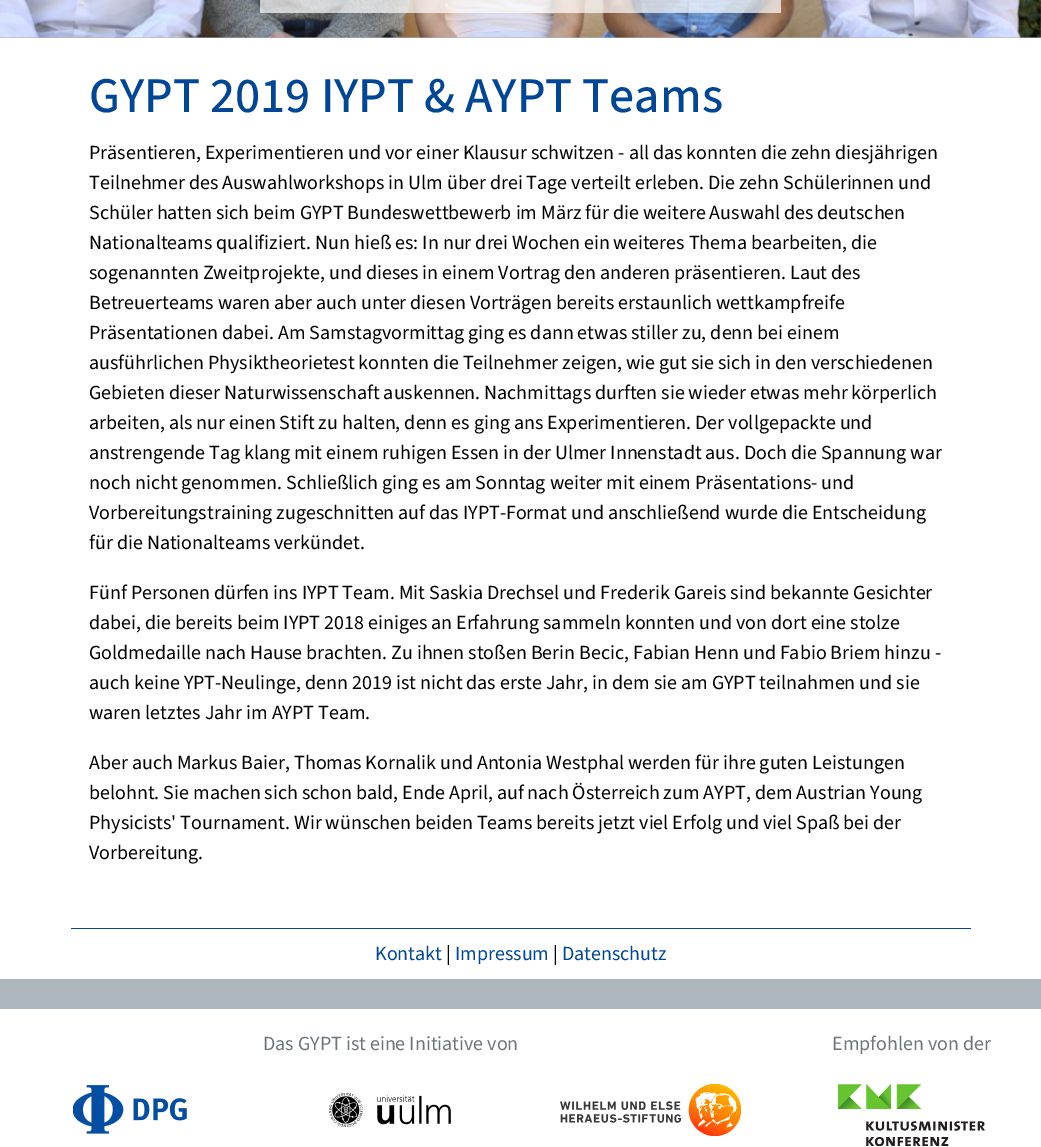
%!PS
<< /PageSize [1041 1147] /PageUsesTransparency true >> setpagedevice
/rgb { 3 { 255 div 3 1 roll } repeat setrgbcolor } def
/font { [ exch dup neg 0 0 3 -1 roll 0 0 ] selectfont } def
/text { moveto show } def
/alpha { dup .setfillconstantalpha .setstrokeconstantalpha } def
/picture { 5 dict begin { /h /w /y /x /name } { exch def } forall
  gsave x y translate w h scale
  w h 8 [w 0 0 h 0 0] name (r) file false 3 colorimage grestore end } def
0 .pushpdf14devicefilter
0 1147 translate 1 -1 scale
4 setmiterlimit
173 181 189 rgb
0 0 1041 1147 rectfill
(img_01.rgb) 0 0 1041 38 picture
0.7 alpha
255 255 255 rgb
260 0 521 13 rectfill
1 alpha
0 38 1041 941 rectfill
0 70 150 rgb
71 928 900 1 rectfill
255 255 255 rgb
0 1009 1041 138 rectfill
(img_02.rgb) 73 1085 114 49 picture
(img_03.rgb) 329 1093 122 34 picture
(img_04.rgb) 560 1084 181 52 picture
(img_05.rgb) 838 1084 147 62 picture
/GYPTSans-Medium 50 font
0 70 150 rgb
(GYPT 2019 IYPT & AYPT Teams) 89 112 text
/GYPTSans-Regular 20 font
0 0 0 rgb
(Präsentieren, Experimentieren und vor einer Klausur schwitzen - all das konnten die zehn diesjährigen) 89 159 text
(Teilnehmer des Auswahlworkshops in Ulm über drei Tage verteilt erleben. Die zehn Schülerinnen und) 89 189 text
(Schüler hatten sich beim GYPT Bundeswettbewerb im März für die weitere Auswahl des deutschen) 89 219 text
(Nationalteams qualifiziert. Nun hieß es: In nur drei Wochen ein weiteres Thema bearbeiten, die) 89 249 text
(sogenannten Zweitprojekte, und dieses in einem Vortrag den anderen präsentieren. Laut des) 89 279 text
(Betreuerteams waren aber auch unter diesen Vorträgen bereits erstaunlich wettkampfreife) 89 309 text
(Präsentationen dabei. Am Samstagvormittag ging es dann etwas stiller zu, denn bei einem) 89 339 text
(ausführlichen Physiktheorietest konnten die Teilnehmer zeigen, wie gut sie sich in den verschiedenen) 89 369 text
(Gebieten dieser Naturwissenschaft auskennen. Nachmittags durften sie wieder etwas mehr körperlich) 89 399 text
(arbeiten, als nur einen Stift zu halten, denn es ging ans Experimentieren. Der vollgepackte und) 89 429 text
(anstrengende Tag klang mit einem ruhigen Essen in der Ulmer Innenstadt aus. Doch die Spannung war) 89 459 text
(noch nicht genommen. Schließlich ging es am Sonntag weiter mit einem Präsentations- und) 89 489 text
(Vorbereitungstraining zugeschnitten auf das IYPT-Format und anschließend wurde die Entscheidung) 89 519 text
(für die Nationalteams verkündet.) 89 549 text
(Fünf Personen dürfen ins IYPT Team. Mit Saskia Drechsel und Frederik Gareis sind bekannte Gesichter) 89 599 text
(dabei, die bereits beim IYPT 2018 einiges an Erfahrung sammeln konnten und von dort eine stolze) 89 629 text
(Goldmedaille nach Hause brachten. Zu ihnen stoßen Berin Becic, Fabian Henn und Fabio Briem hinzu -) 89 659 text
(auch keine YPT-Neulinge, denn 2019 ist nicht das erste Jahr, in dem sie am GYPT teilnahmen und sie) 89 689 text
(waren letztes Jahr im AYPT Team.) 89 719 text
(Aber auch Markus Baier, Thomas Kornalik und Antonia Westphal werden für ihre guten Leistungen) 89 769 text
(belohnt. Sie machen sich schon bald, Ende April, auf nach Österreich zum AYPT, dem Austrian Young) 89 799 text
(Physicists' Tournament. Wir wünschen beiden Teams bereits jetzt viel Erfolg und viel Spaß bei der) 89 829 text
(Vorbereitung.) 89 859 text
0 70 150 rgb
(Kontakt) 375 960 text
0 0 0 rgb
(|) 446 960 text
0 70 150 rgb
(Impressum) 455 960 text
0 0 0 rgb
(|) 553 960 text
0 70 150 rgb
(Datenschutz) 562 960 text
108 117 125 rgb
(Das GYPT ist eine Initiative von) 263 1050 text
(Empfohlen von der) 832 1050 text
.poppdf14devicefilter showpage
